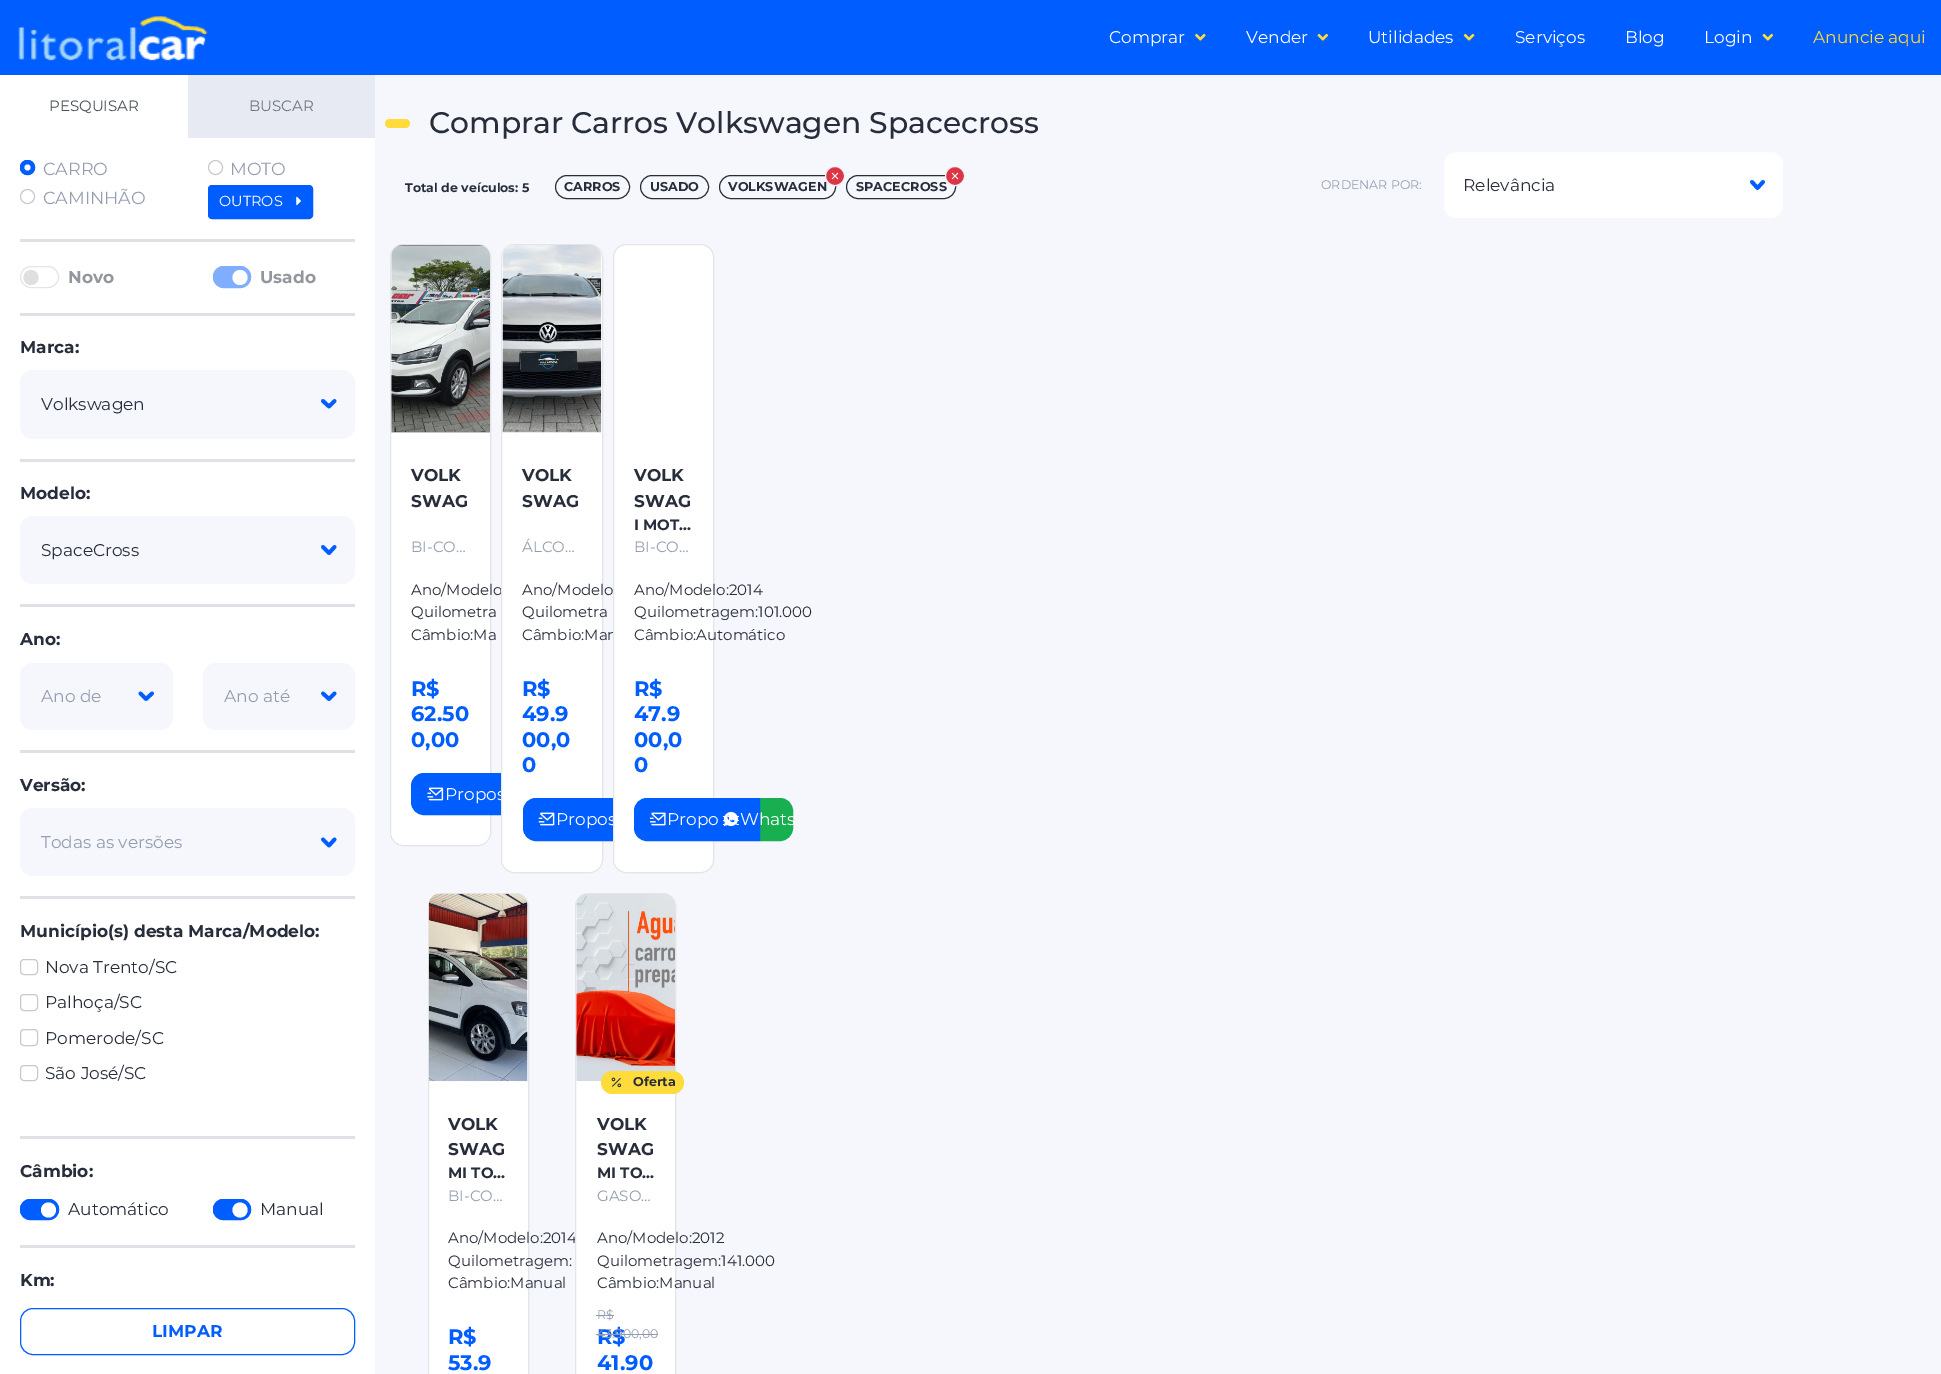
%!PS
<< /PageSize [1941 1374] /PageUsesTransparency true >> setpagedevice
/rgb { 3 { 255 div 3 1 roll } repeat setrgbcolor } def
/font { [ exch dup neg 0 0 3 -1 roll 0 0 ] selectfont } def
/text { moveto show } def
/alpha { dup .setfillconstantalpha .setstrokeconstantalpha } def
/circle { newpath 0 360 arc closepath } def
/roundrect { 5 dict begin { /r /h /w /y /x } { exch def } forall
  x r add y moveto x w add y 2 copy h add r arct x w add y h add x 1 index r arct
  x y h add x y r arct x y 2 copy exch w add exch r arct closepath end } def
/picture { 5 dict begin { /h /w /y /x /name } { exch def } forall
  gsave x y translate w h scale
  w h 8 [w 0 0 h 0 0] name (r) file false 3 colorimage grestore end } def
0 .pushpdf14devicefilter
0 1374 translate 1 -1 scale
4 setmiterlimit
245 247 252 rgb
0 0 1941 1374 rectfill
0 93 255 rgb
0 0 1941 75 rectfill
(img_01.rgb) 18 16 190 45 picture
(img_02.rgb) 1195 33 11 8 picture
(img_03.rgb) 1317 33 12 8 picture
(img_04.rgb) 1463 33 12 8 picture
(img_03.rgb) 1762 33 12 8 picture
255 255 255 rgb
0 75 375 1299 rectfill
231 234 242 rgb
188 75 187 63 rectfill
0 93 255 rgb
27.5 167.5 7.5 circle fill
255 255 255 rgb
27.5 167.5 3 circle fill
0 93 255 rgb
27.5 167.5 7 circle stroke
200 201 204 rgb
215.5 167.5 7 circle stroke
27.5 196.5 7 circle stroke
0 93 255 rgb
208.5 185.5 104 33 3.5 roundrect gsave fill grestore
stroke
(img_05.rgb) 296 196 5 10 picture
222 226 230 rgb
20 239 335 3 rectfill
223 223 223 rgb
31 277.5 7.5 circle fill
228 228 229 rgb
20.5 266.5 38 21 10.5 roundrect stroke
128 174 255 rgb
213 266 38 22 11 roundrect fill
255 255 255 rgb
240 277.5 7.5 circle fill
128 174 255 rgb
213.5 266.5 37 21 10.5 roundrect stroke
222 226 230 rgb
20 313 335 3 rectfill
245 247 252 rgb
20 370 335 69 13 roundrect fill
0 93 255 rgb
3.8 setlinewidth
1 setlinecap
1 setlinejoin
323 401 moveto 6 5.5 rlineto 5.5 -5.5 rlineto stroke
222 226 230 rgb
20 459 335 3 rectfill
245 247 252 rgb
20 516 335 68 13 roundrect fill
0 93 255 rgb
323 547 moveto 6 6 rlineto 5.5 -6 rlineto stroke
222 226 230 rgb
20 604 335 3 rectfill
245 247 252 rgb
20 663 153 67 13 roundrect fill
0 93 255 rgb
140.5 693.5 moveto 5.5 5.5 rlineto 6 -5.5 rlineto stroke
245 247 252 rgb
203 663 152 67 13 roundrect fill
0 93 255 rgb
323 693.5 moveto 6 5.5 rlineto 5.5 -5.5 rlineto stroke
222 226 230 rgb
20 750 335 3 rectfill
245 247 252 rgb
20 808 335 68 13 roundrect fill
0 93 255 rgb
323 839.5 moveto 6 6 rlineto 5.5 -6 rlineto stroke
222 226 230 rgb
20 896 335 3 rectfill
200 201 204 rgb
1 setlinewidth
0 setlinecap
0 setlinejoin
20.5 959.5 17 15 3.5 roundrect stroke
20.5 994.5 17 16 3.5 roundrect stroke
20.5 1029.5 17 16 3.5 roundrect stroke
20.5 1065.5 17 15 3.5 roundrect stroke
222 226 230 rgb
20 1136 335 3 rectfill
0 93 255 rgb
20 1199 39 21 10.5 roundrect fill
255 255 255 rgb
48.5 1210 7.5 circle fill
0 93 255 rgb
20.5 1199.5 38 20 10 roundrect stroke
213 1199 38 21 10.5 roundrect fill
255 255 255 rgb
240 1210 7.5 circle fill
0 93 255 rgb
213.5 1199.5 37 20 10 roundrect stroke
222 226 230 rgb
20 1245 335 3 rectfill
0 93 255 rgb
20.5 1308.5 334 46 12.5 roundrect stroke
255 220 59 rgb
385 119 25 9 4.5 roundrect fill
39 45 58 rgb
555.5 175.5 74 23 11.5 roundrect stroke
640.5 175.5 68 23 11.5 roundrect stroke
719.5 175.5 116 23 11.5 roundrect stroke
846.5 175.5 109 23 11.5 roundrect stroke
255 255 255 rgb
1443 151 341 68 13 roundrect fill
0 93 255 rgb
3.8 setlinewidth
1 setlinecap
1 setlinejoin
1752 182 moveto 5.5 6 rlineto 5.5 -6 rlineto stroke
245 247 252 rgb
1 setlinewidth
0 setlinecap
0 setlinejoin
1443.5 151.5 340 67 12.5 roundrect stroke
255 255 255 rgb
390 244 101 602 13 roundrect fill
0.12 alpha
34 38 49 rgb
390.5 244.5 100 601 12.5 roundrect stroke
1 alpha
(img_07.rgb) 391 245 99 188 picture
0 93 255 rgb
424 773.5 moveto 113.5 0 rlineto 0 41 rlineto -113.5 0 rlineto -7 0 -12.5 -5.5 -12.5 -12.5 rcurveto 0 -16 rlineto 0 -7 5.5 -12.5 12.5 -12.5 rcurveto closepath gsave fill grestore
stroke
(img_08.rgb) 427 787 17 14 picture
24 175 80 rgb
760.5 798.5 moveto 19.5 0 rlineto 7 0 12.5 5.5 12.5 12.5 rcurveto 0 17 rlineto 0 7 -5.5 12.5 -12.5 12.5 rcurveto -19.5 0 rlineto closepath gsave fill grestore
stroke
255 255 255 rgb
428 893 101 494 13 roundrect fill
0.12 alpha
34 38 49 rgb
428.5 893.5 100 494 12.5 roundrect stroke
1 alpha
(img_14.rgb) 428 893 100 189 picture
/Montserrat-Regular 17 font
255 255 255 rgb
(Comprar) 1109 43 text
(Vender) 1246 43 text
(Utilidades) 1368 43 text
(Serviços) 1515 43 text
(Blog) 1625 43 text
(Login) 1704 43 text
255 220 59 rgb
(Anuncie aqui) 1813 43 text
/Montserrat-Regular 15 font
73 80 87 rgb
(PESQUISAR) 49 111 text
108 117 125 rgb
(BUSCAR) 249 111 text
/Montserrat-Regular 17.5 font
148 157 174 rgb
(CARRO) 43 175 text
(MOTO) 230 175 text
(CAMINHÃO) 43 204 text
/Montserrat-Regular 14.5 font
255 255 255 rgb
(OUTROS) 219 206 text
/Montserrat-Bold 17 font
147 150 157 rgb
(Novo) 68 283 text
(Usado) 260 283 text
39 45 58 rgb
(Marca:) 20 353 text
/Montserrat-Regular 17 font
(Volkswagen) 41 410 text
/Montserrat-Bold 17 font
(Modelo:) 20 499 text
/Montserrat-Regular 17 font
(SpaceCross) 41 556 text
/Montserrat-Bold 17 font
(Ano:) 20 645 text
/Montserrat-Regular 17 font
148 157 174 rgb
(Ano de) 41 702 text
(Ano até) 224 702 text
/Montserrat-Bold 17 font
39 45 58 rgb
(Versão:) 20 791 text
/Montserrat-Regular 17 font
148 157 174 rgb
(Todas as versões) 41 848 text
/Montserrat-Bold 17 font
39 45 58 rgb
(Município\(s\) desta Marca/Modelo:) 20 937 text
/Montserrat-Regular 17 font
(Nova Trento/SC) 45 973 text
(Palhoça/SC) 45 1008 text
(Pomerode/SC) 45 1044 text
(São José/SC) 45 1079 text
/Montserrat-Bold 17 font
(Câmbio:) 20 1177 text
/Montserrat-Regular 17 font
(Automático) 68 1215 text
(Manual) 260 1215 text
/Montserrat-Bold 17 font
(Km:) 20 1286 text
0 93 255 rgb
(LIMPAR) 152 1337 text
/Montserrat-Medium 29.75 font
39 45 58 rgb
(Comprar Carros Volkswagen Spacecross) 429 133 text
/Montserrat-Bold 12.5 font
(Total de veículos: 5) 405 192 text
/Montserrat-Bold 12.75 font
(CARROS) 564 191 text
(USADO) 650 191 text
(VOLKSWAGEN) 728 191 text
220 53 69 rgb
835 176 9.5 circle gsave fill grestore
245 247 252 rgb
stroke
(img_06.rgb) 831 172 8 8 picture
39 45 58 rgb
(SPACECROSS) 856 191 text
220 53 69 rgb
955 176 9.5 circle gsave fill grestore
245 247 252 rgb
stroke
(img_06.rgb) 951 172 8 8 picture
/Montserrat-Regular 12.5 font
148 157 174 rgb
(ORDENAR POR:) 1321 189 text
/Montserrat-Regular 17 font
39 45 58 rgb
(Relevância) 1463 191 text
/Montserrat-Bold 17 font
(VOLK) 411 481 text
(SWAG) 411 507 text
/Montserrat-Regular 15 font
148 157 174 rgb
(BI-CO…) 411 552 text
39 45 58 rgb
(Ano/Modelo) 411 595 text
(Quilometra) 411 617 text
(Câmbio:Ma) 411 640 text
/Montserrat-Bold 21 font
0 93 255 rgb
(R$) 411 696 text
(62.50) 411 721 text
(0,00) 411 747 text
/Montserrat-Regular 17 font
255 255 255 rgb
(Propos) 445 800 text
501 244 102 629 13 roundrect fill
0.12 alpha
34 38 49 rgb
501.5 244.5 101 628 12.5 roundrect stroke
1 alpha
(img_09.rgb) 502 245 100 188 picture
/Montserrat-Bold 17 font
39 45 58 rgb
(VOLK) 522 481 text
(SWAG) 522 507 text
/Montserrat-Regular 15 font
148 157 174 rgb
(ÁLCO…) 522 552 text
39 45 58 rgb
(Ano/Modelo) 522 595 text
(Quilometra) 522 617 text
(Câmbio:Man) 522 640 text
/Montserrat-Bold 21 font
0 93 255 rgb
(R$) 522 696 text
(49.9) 522 721 text
(00,0) 522 747 text
(0) 522 772 text
536 798.5 moveto 112.5 0 rlineto 0 42 rlineto -112.5 0 rlineto -7 0 -12.5 -5.5 -12.5 -12.5 rcurveto 0 -17 rlineto 0 -7 5.5 -12.5 12.5 -12.5 rcurveto closepath gsave fill grestore
stroke
(img_10.rgb) 538 812 17 14 picture
/Montserrat-Regular 17 font
255 255 255 rgb
(Propos) 556 825 text
(img_11.rgb) 612 817 1 9 picture
613 244 101 629 13 roundrect fill
0.12 alpha
34 38 49 rgb
613.5 244.5 100 628 12.5 roundrect stroke
/Montserrat-Bold 17 font
1 alpha
39 45 58 rgb
(VOLK) 634 481 text
(SWAG) 634 507 text
/Montserrat-Bold 15 font
(I MOT…) 634 530 text
/Montserrat-Regular 15 font
148 157 174 rgb
(BI-CO…) 634 552 text
39 45 58 rgb
(Ano/Modelo:2014) 634 595 text
(Quilometragem:101.000) 634 617 text
(Câmbio:Automático) 634 640 text
/Montserrat-Bold 21 font
0 93 255 rgb
(R$) 634 696 text
(47.9) 634 721 text
(00,0) 634 747 text
(0) 634 772 text
647 798.5 moveto 112.5 0 rlineto 0 42 rlineto -112.5 0 rlineto -7 0 -12.5 -5.5 -12.5 -12.5 rcurveto 0 -17 rlineto 0 -7 5.5 -12.5 12.5 -12.5 rcurveto closepath gsave fill grestore
stroke
(img_12.rgb) 650 812 16 14 picture
/Montserrat-Regular 17 font
255 255 255 rgb
(Propo) 667 825 text
(img_13.rgb) 723 811 16 16 picture
(Whats) 740 825 text
/Montserrat-Bold 17 font
39 45 58 rgb
(VOLK) 448 1130 text
(SWAG) 448 1155 text
/Montserrat-Bold 15 font
(MI TO…) 448 1178 text
/Montserrat-Regular 15 font
148 157 174 rgb
(BI-CO…) 448 1201 text
39 45 58 rgb
(Ano/Modelo:2014) 448 1243 text
(Quilometragem:) 448 1266 text
(Câmbio:Manual) 448 1288 text
/Montserrat-Bold 21 font
0 93 255 rgb
(R$) 448 1344 text
(53.9) 448 1370 text
255 255 255 rgb
575 893 101 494 13 roundrect fill
0.12 alpha
34 38 49 rgb
575.5 893.5 100 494 12.5 roundrect stroke
1 alpha
(img_15.rgb) 576 894 99 187 picture
255 220 59 rgb
601 1071 83 23 11.5 roundrect fill
(img_16.rgb) 611 1077 11 11 picture
/Montserrat-Bold 12.75 font
39 45 58 rgb
(Oferta) 633 1086 text
/Montserrat-Bold 17 font
(VOLK) 597 1130 text
(SWAG) 597 1155 text
/Montserrat-Bold 15 font
(MI TO…) 597 1178 text
/Montserrat-Regular 15 font
148 157 174 rgb
(GASO…) 597 1201 text
39 45 58 rgb
(Ano/Modelo:2012) 597 1243 text
(Quilometragem:141.000) 597 1266 text
(Câmbio:Manual) 597 1288 text
/Montserrat-Regular 12.5 font
148 157 174 rgb
(R$) 597 1319 text
596 1315 18 1 rectfill
/Montserrat-Bold 21 font
0 93 255 rgb
(R$) 597 1344 text
148 157 174 rgb
596 1334 62 1 rectfill
/Montserrat-Regular 12.5 font
(43.900,00) 597 1338 text
/Montserrat-Bold 21 font
0 93 255 rgb
(41.90) 597 1370 text
.poppdf14devicefilter showpage
